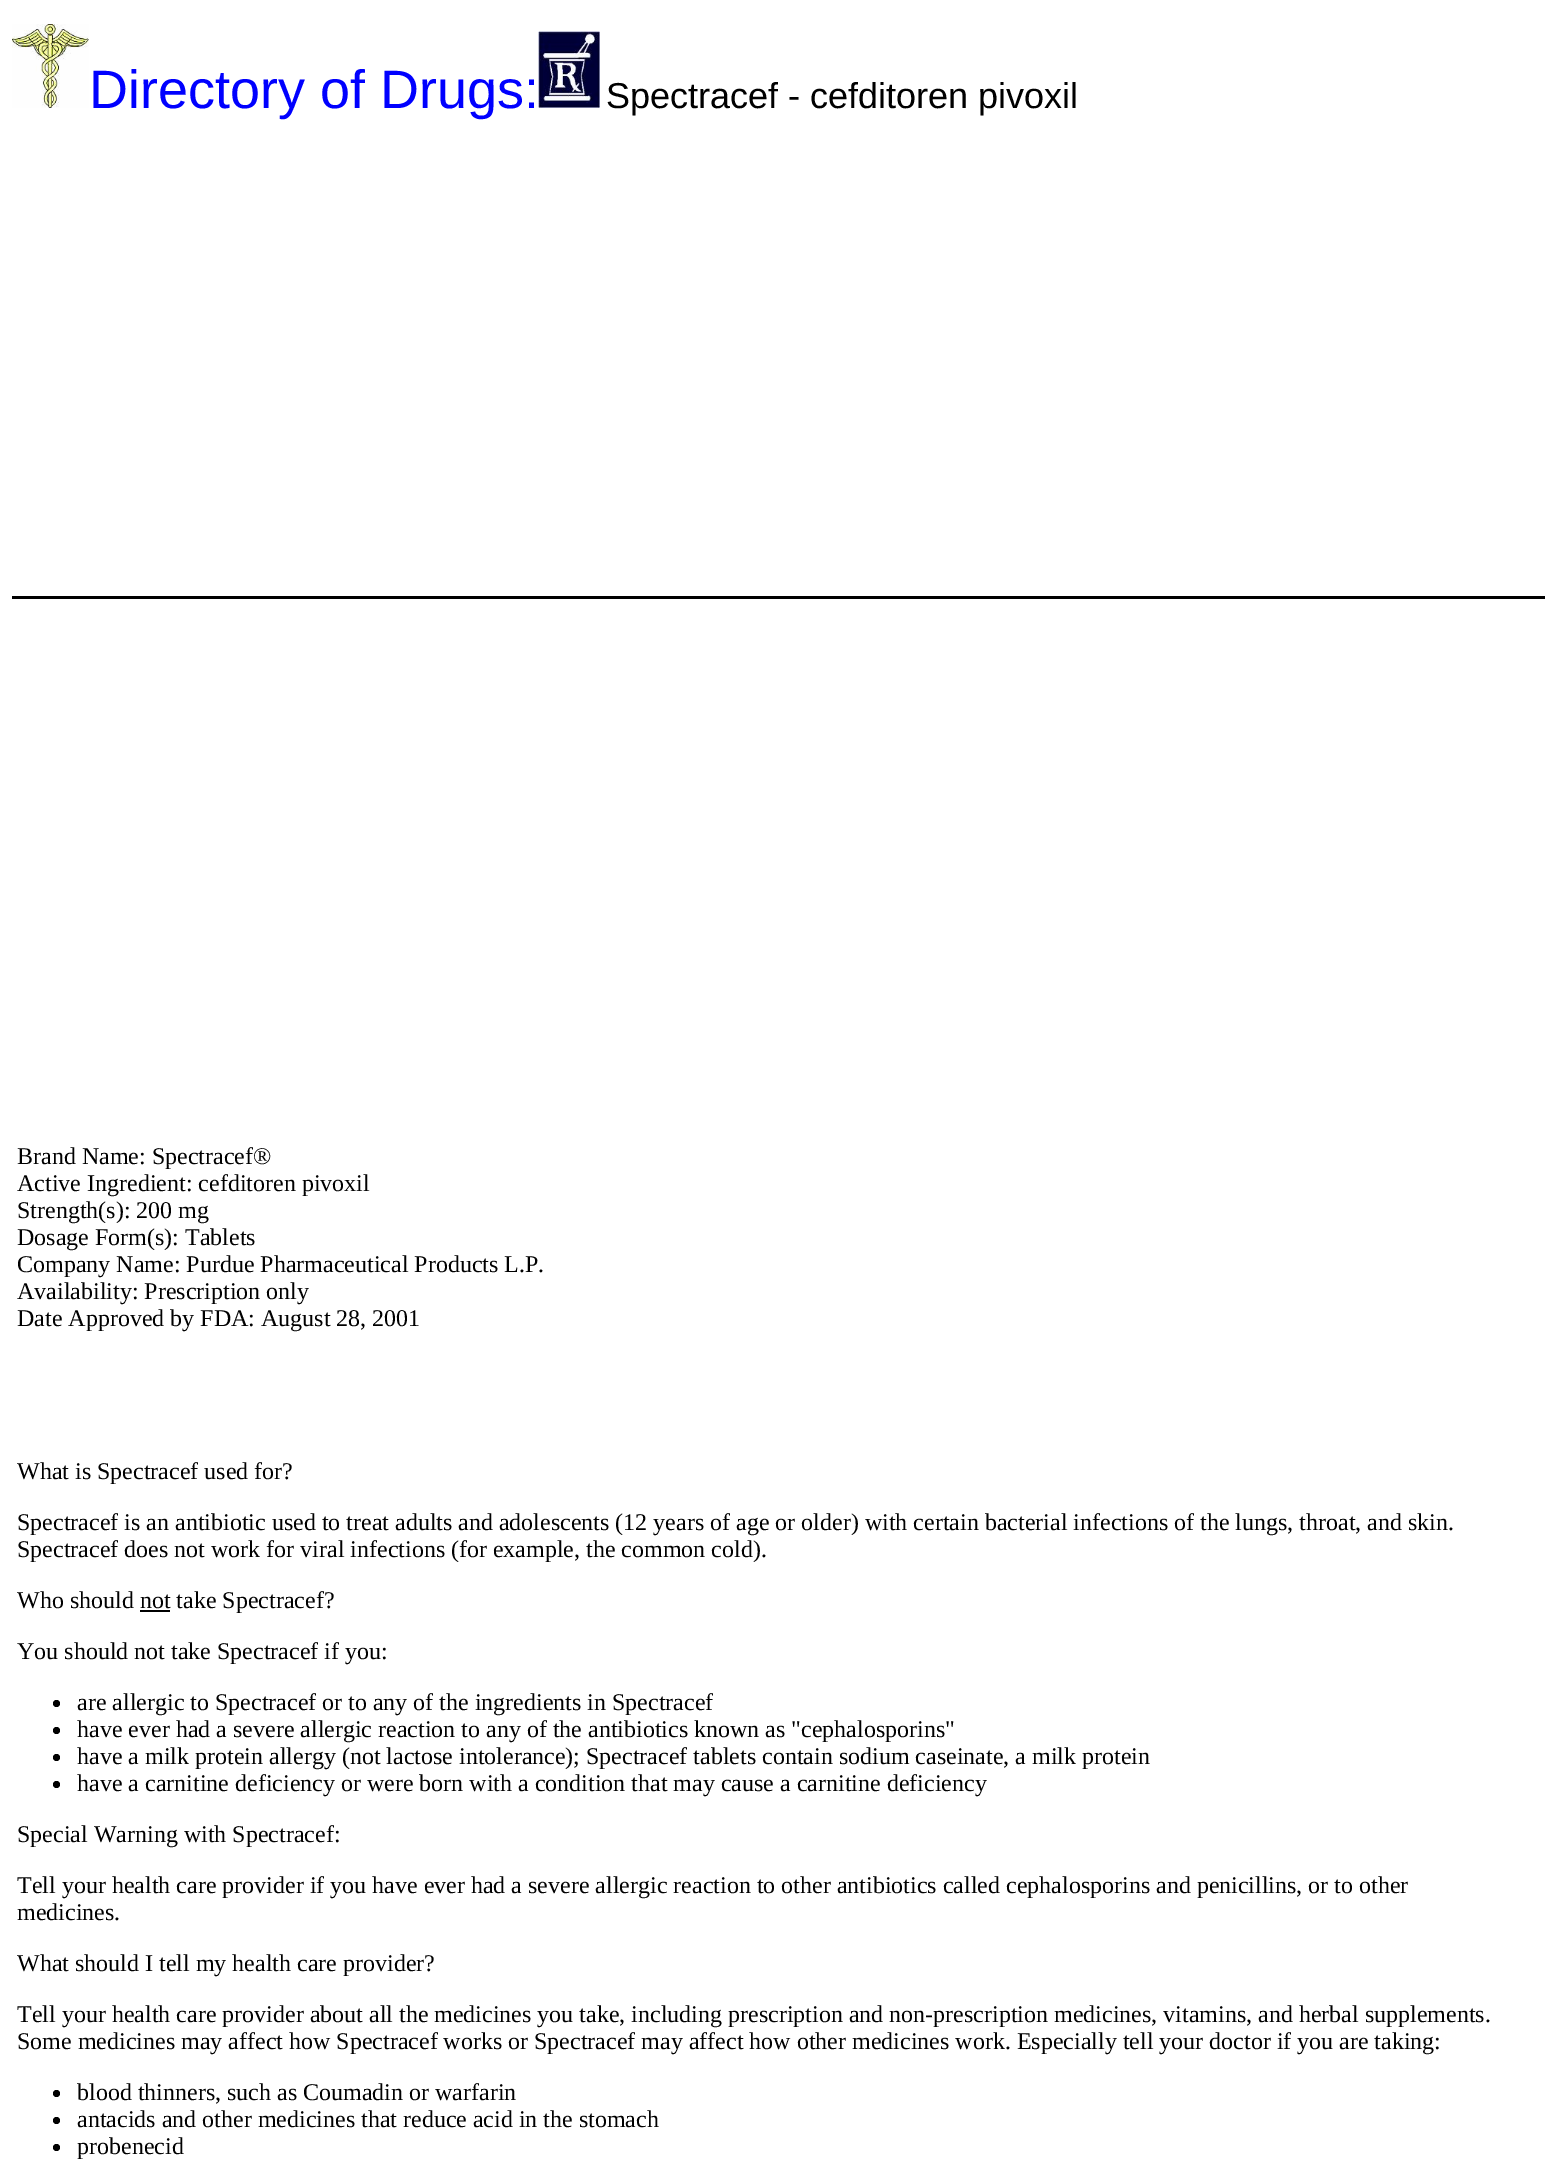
%!PS
<< /PageSize [1557 2184] >> setpagedevice
/rgb { 3 { 255 div 3 1 roll } repeat setrgbcolor } def
/font { [ exch dup neg 0 0 3 -1 roll 0 0 ] selectfont } def
/text { moveto show } def
/circle { newpath 0 360 arc closepath } def
/picture { 5 dict begin { /h /w /y /x /name } { exch def } forall
  gsave x y translate w h scale
  w h 8 [w 0 0 h 0 0] name (r) file false 3 colorimage grestore end } def
0 2184 translate 1 -1 scale
4 setmiterlimit
255 255 255 rgb
0 0 1557 2184 rectfill
(img_01.rgb) 12 24 77 84 picture
(img_02.rgb) 538 31 62 77 picture
0 0 0 rgb
12 596 1533 3 rectfill
140 1610 30 2 rectfill
56.5 1703.5 3.5 circle fill
56.5 1730.5 3.5 circle fill
56.5 1757.5 3.5 circle fill
56.5 1784.5 3.5 circle fill
56.5 2093.5 3.5 circle fill
56.5 2120.5 3.5 circle fill
56.5 2147.5 3.5 circle fill
/LiberationSans-Regular 54 font
0 0 255 rgb
(Directory of Drugs:) 89 108 text
/LiberationSans-Regular 36 font
0 0 0 rgb
(Spectracef - cefditoren pivoxil) 606 108 text
/LiberationSerif-Regular 24 font
(Brand Name: Spectracef®) 17 1164 text
(Active Ingredient: cefditoren pivoxil) 17 1191 text
(Strength\(s\): 200 mg) 17 1218 text
(Dosage Form\(s\): Tablets) 17 1245 text
(Company Name: Purdue Pharmaceutical Products L.P.) 17 1272 text
(Availability: Prescription only) 17 1299 text
(Date Approved by FDA: August 28, 2001) 17 1326 text
(What is Spectracef used for?) 17 1479 text
(Spectracef is an antibiotic used to treat adults and adolescents \(12 years of age or older\) with certain bacterial infections of the lungs, throat, and skin.) 17 1530 text
(Spectracef does not work for viral infections \(for example, the common cold\).) 17 1557 text
(Who should not take Spectracef?) 17 1608 text
(You should not take Spectracef if you:) 17 1659 text
(are allergic to Spectracef or to any of the ingredients in Spectracef) 77 1710 text
(have ever had a severe allergic reaction to any of the antibiotics known as "cephalosporins") 77 1737 text
(have a milk protein allergy \(not lactose intolerance\); Spectracef tablets contain sodium caseinate, a milk protein) 77 1764 text
(have a carnitine deficiency or were born with a condition that may cause a carnitine deficiency) 77 1791 text
(Special Warning with Spectracef:) 17 1842 text
(Tell your health care provider if you have ever had a severe allergic reaction to other antibiotics called cephalosporins and penicillins, or to other) 17 1893 text
(medicines.) 17 1920 text
(What should I tell my health care provider?) 17 1971 text
(Tell your health care provider about all the medicines you take, including prescription and non-prescription medicines, vitamins, and herbal supplements.) 17 2022 text
(Some medicines may affect how Spectracef works or Spectracef may affect how other medicines work. Especially tell your doctor if you are taking:) 17 2049 text
(blood thinners, such as Coumadin or warfarin) 77 2100 text
(antacids and other medicines that reduce acid in the stomach) 77 2127 text
(probenecid) 77 2154 text
showpage
